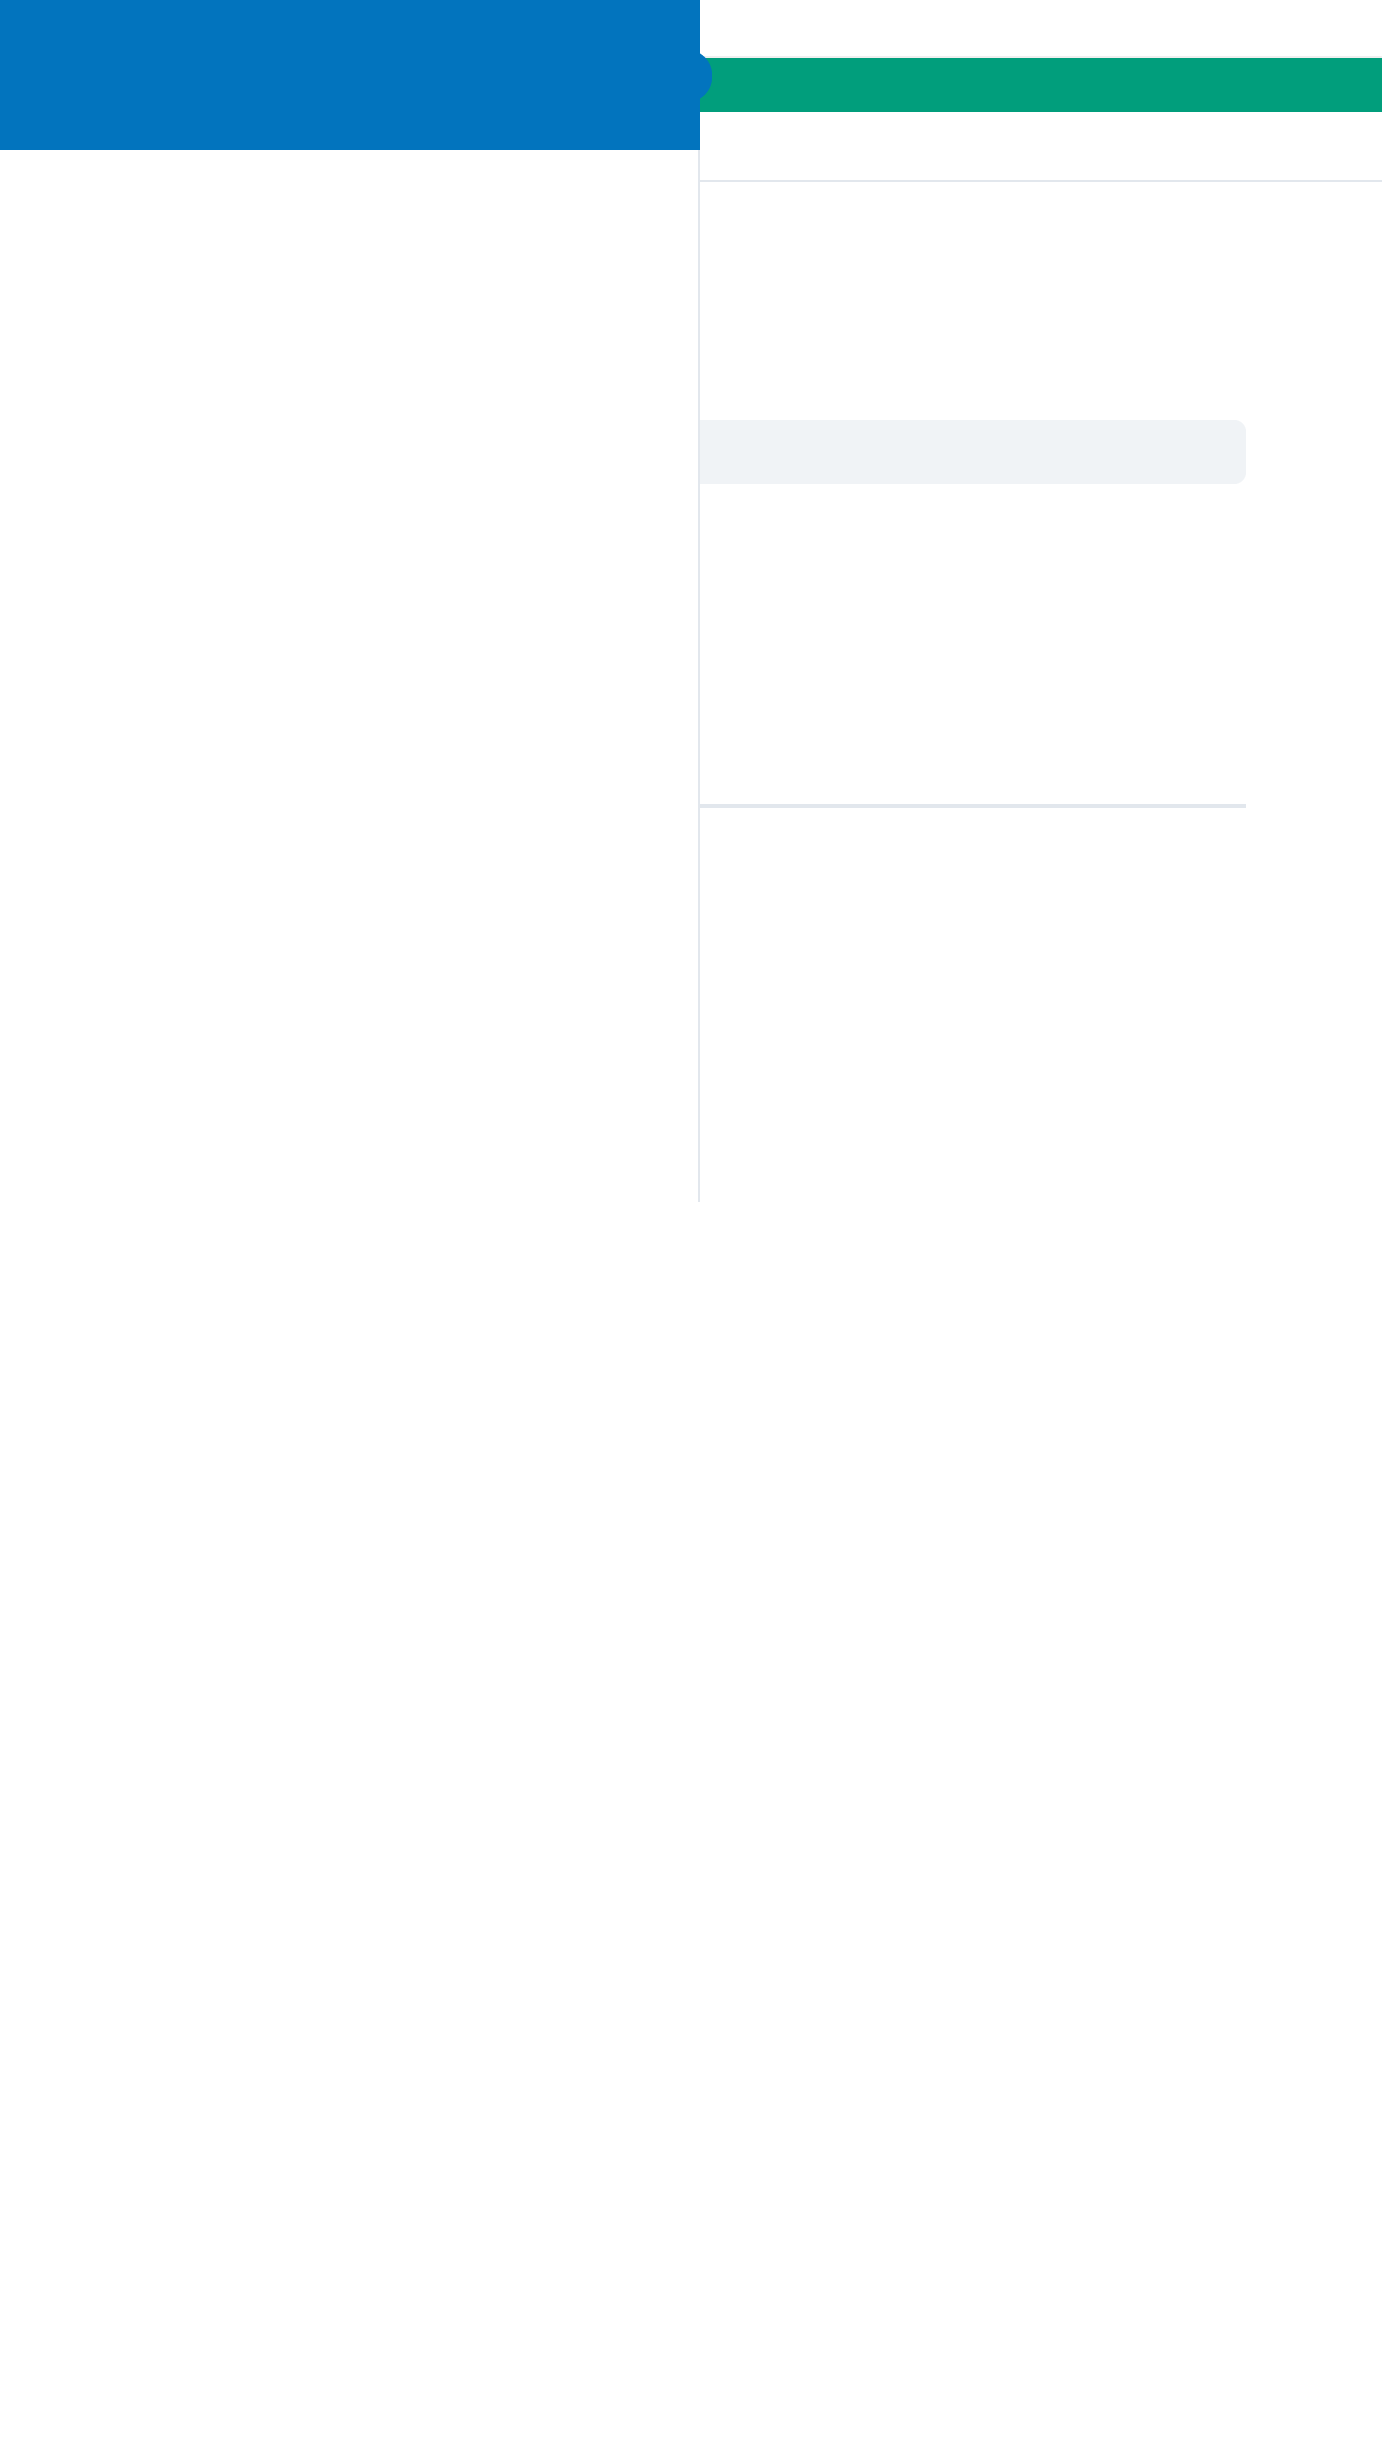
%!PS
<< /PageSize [1382 2464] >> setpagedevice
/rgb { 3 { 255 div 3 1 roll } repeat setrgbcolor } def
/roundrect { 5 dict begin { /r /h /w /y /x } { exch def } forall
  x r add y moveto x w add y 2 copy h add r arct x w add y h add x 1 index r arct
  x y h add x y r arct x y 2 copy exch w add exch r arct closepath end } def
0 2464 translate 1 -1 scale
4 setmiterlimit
255 255 255 rgb
0 0 1382 2464 rectfill
240 243 246 rgb
82 420 1164 64 12 roundrect fill
255 255 255 rgb
82 420 616 64 rectfill
226 231 237 rgb
698 150 2 1052 rectfill
2 116 190 rgb
0 0 700 150 rectfill
239 239 239 rgb
703 56 679 2 rectfill
1 158 124 rgb
700 58 682 54 rectfill
2 116 190 rgb
662 50 50 52 25 roundrect fill
226 231 237 rgb
700 180 682 2 rectfill
700 804 546 4 rectfill
showpage
